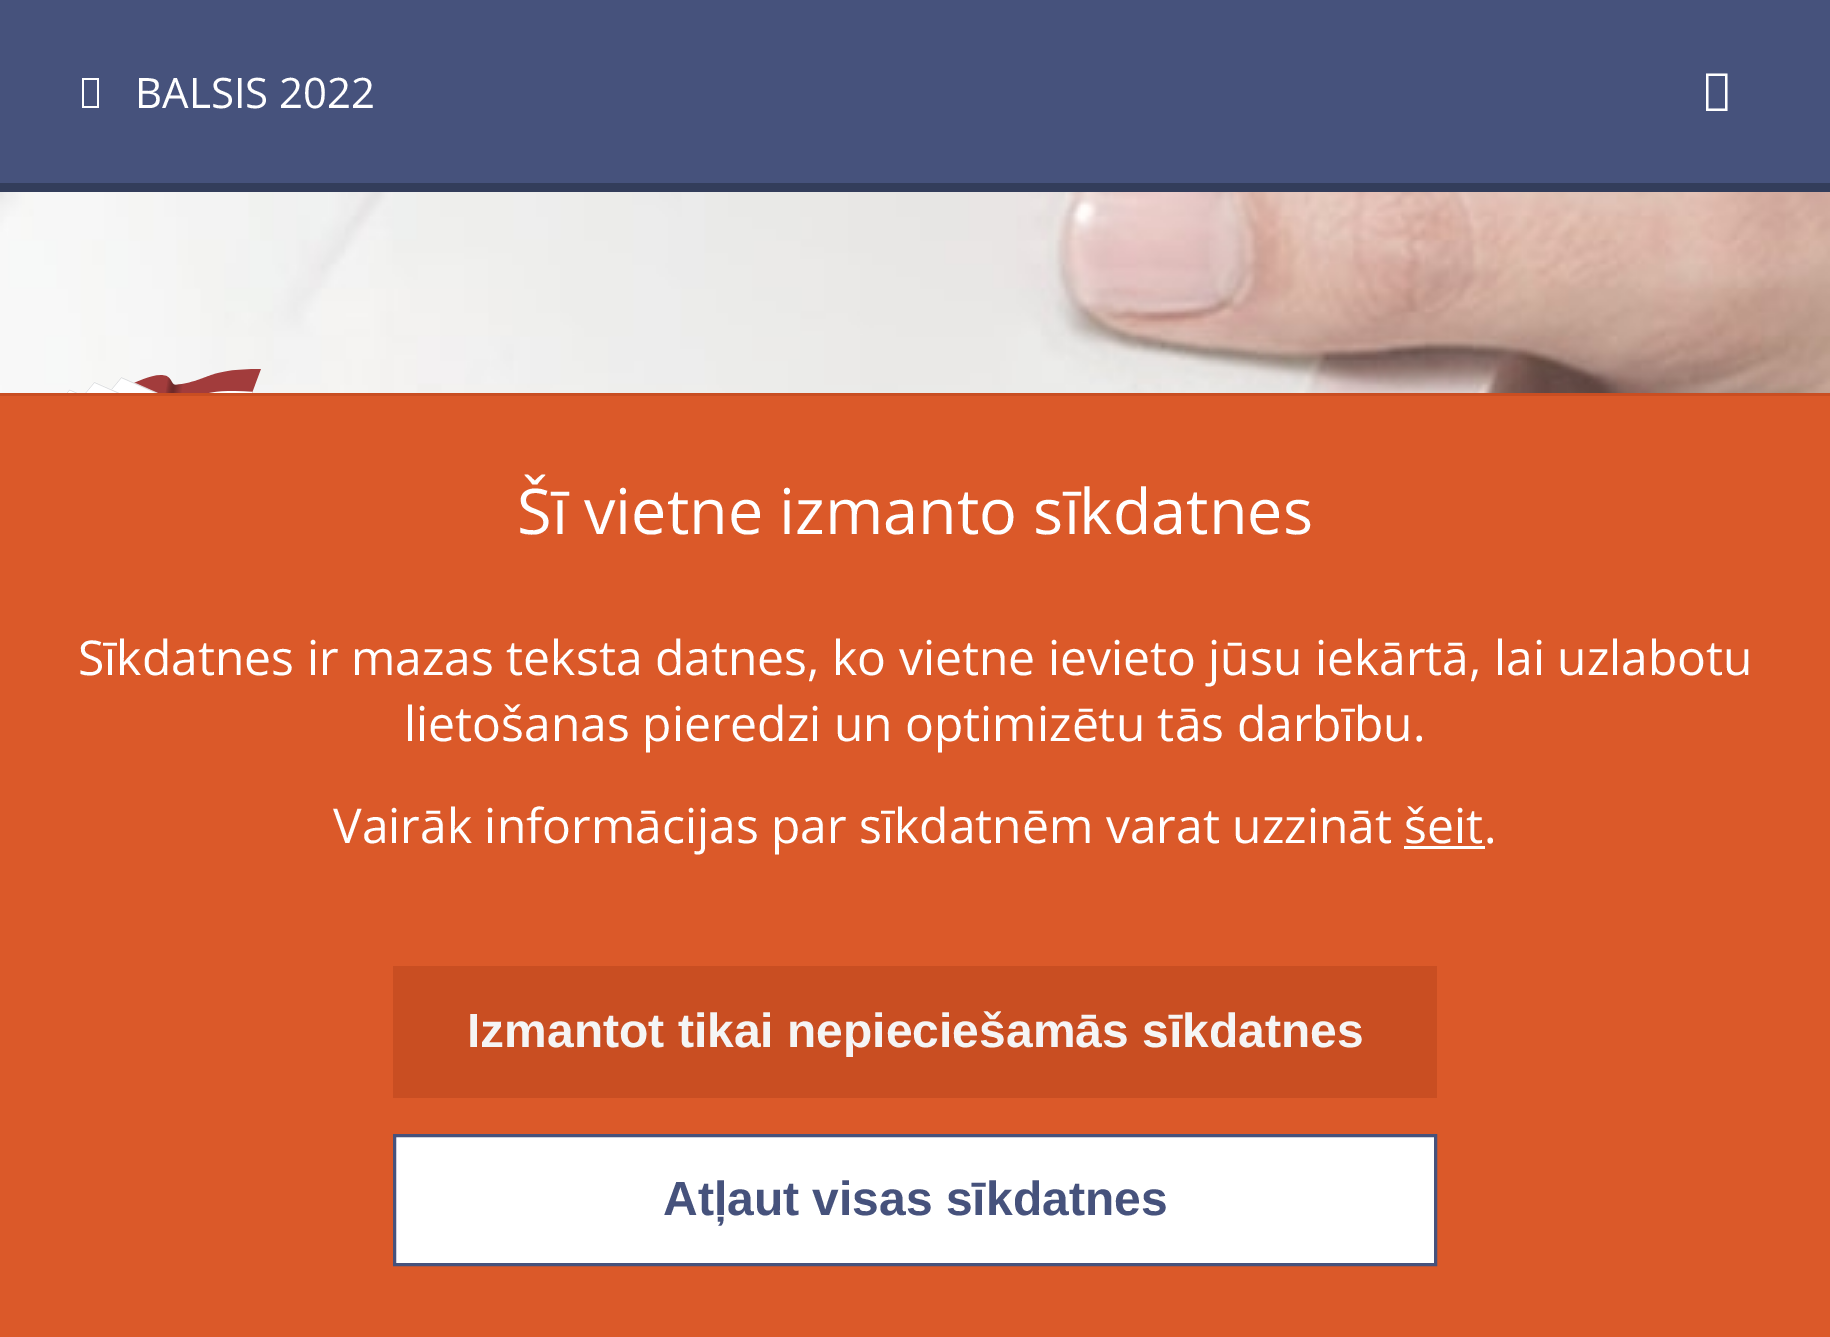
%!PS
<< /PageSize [1830 1337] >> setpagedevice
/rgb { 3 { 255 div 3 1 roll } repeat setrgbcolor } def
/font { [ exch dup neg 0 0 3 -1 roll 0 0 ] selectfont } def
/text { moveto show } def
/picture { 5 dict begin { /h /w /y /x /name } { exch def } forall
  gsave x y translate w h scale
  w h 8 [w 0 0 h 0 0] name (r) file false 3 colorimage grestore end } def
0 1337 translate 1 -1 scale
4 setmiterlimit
255 255 255 rgb
0 0 1830 1337 rectfill
70 82 124 rgb
0 0 1830 183 rectfill
51 61 91 rgb
0 183 1830 9 rectfill
255 255 255 rgb
82 108 moveto 0 -30 rlineto 17 0 rlineto 0 30 rlineto closepath 84 106 moveto 13 0 rlineto 0 -26 rlineto -13 0 rlineto closepath fill
1706 111 moveto 0 -37.5 rlineto 21.5 0 rlineto 0 37.5 rlineto closepath 1708.5 108.5 moveto 16.5 0 rlineto 0 -32.5 rlineto -16.5 0 rlineto closepath fill
(img_01.rgb) 0 192 1830 201 picture
(img_02.rgb) 66 369 195 24 picture
219 89 41 rgb
0 396 1830 941 rectfill
201 78 34 rgb
0 393 1830 3 rectfill
255 255 255 rgb
1404 846 81 3 rectfill
201 78 34 rgb
393 966 1044 132 rectfill
255 255 255 rgb
394.5 1135.5 moveto 1041 0 rlineto 0 129 rlineto -1041 0 rlineto closepath gsave fill grestore
70 82 124 rgb
3 setlinewidth
stroke
/OpenSans-Regular 42 font
255 255 255 rgb
(BALSIS 2022) 135 108 text
/OpenSans-Regular 63 font
(Šī vietne izmanto sīkdatnes) 517 534 text
/OpenSans-Regular 48 font
(Sīkdatnes ir mazas teksta datnes, ko vietne ievieto jūsu iekārtā, lai uzlabotu) 78 675 text
(lietošanas pieredzi un optimizētu tās darbību.) 404 741 text
(Vairāk informācijas par sīkdatnēm varat uzzināt šeit.) 333 843 text
/LiberationSans-Bold 48 font
245 245 245 rgb
(Izmantot tikai nepieciešamās sīkdatnes) 467 1047 text
70 82 124 rgb
(Atļaut visas sīkdatnes) 663 1215 text
showpage
